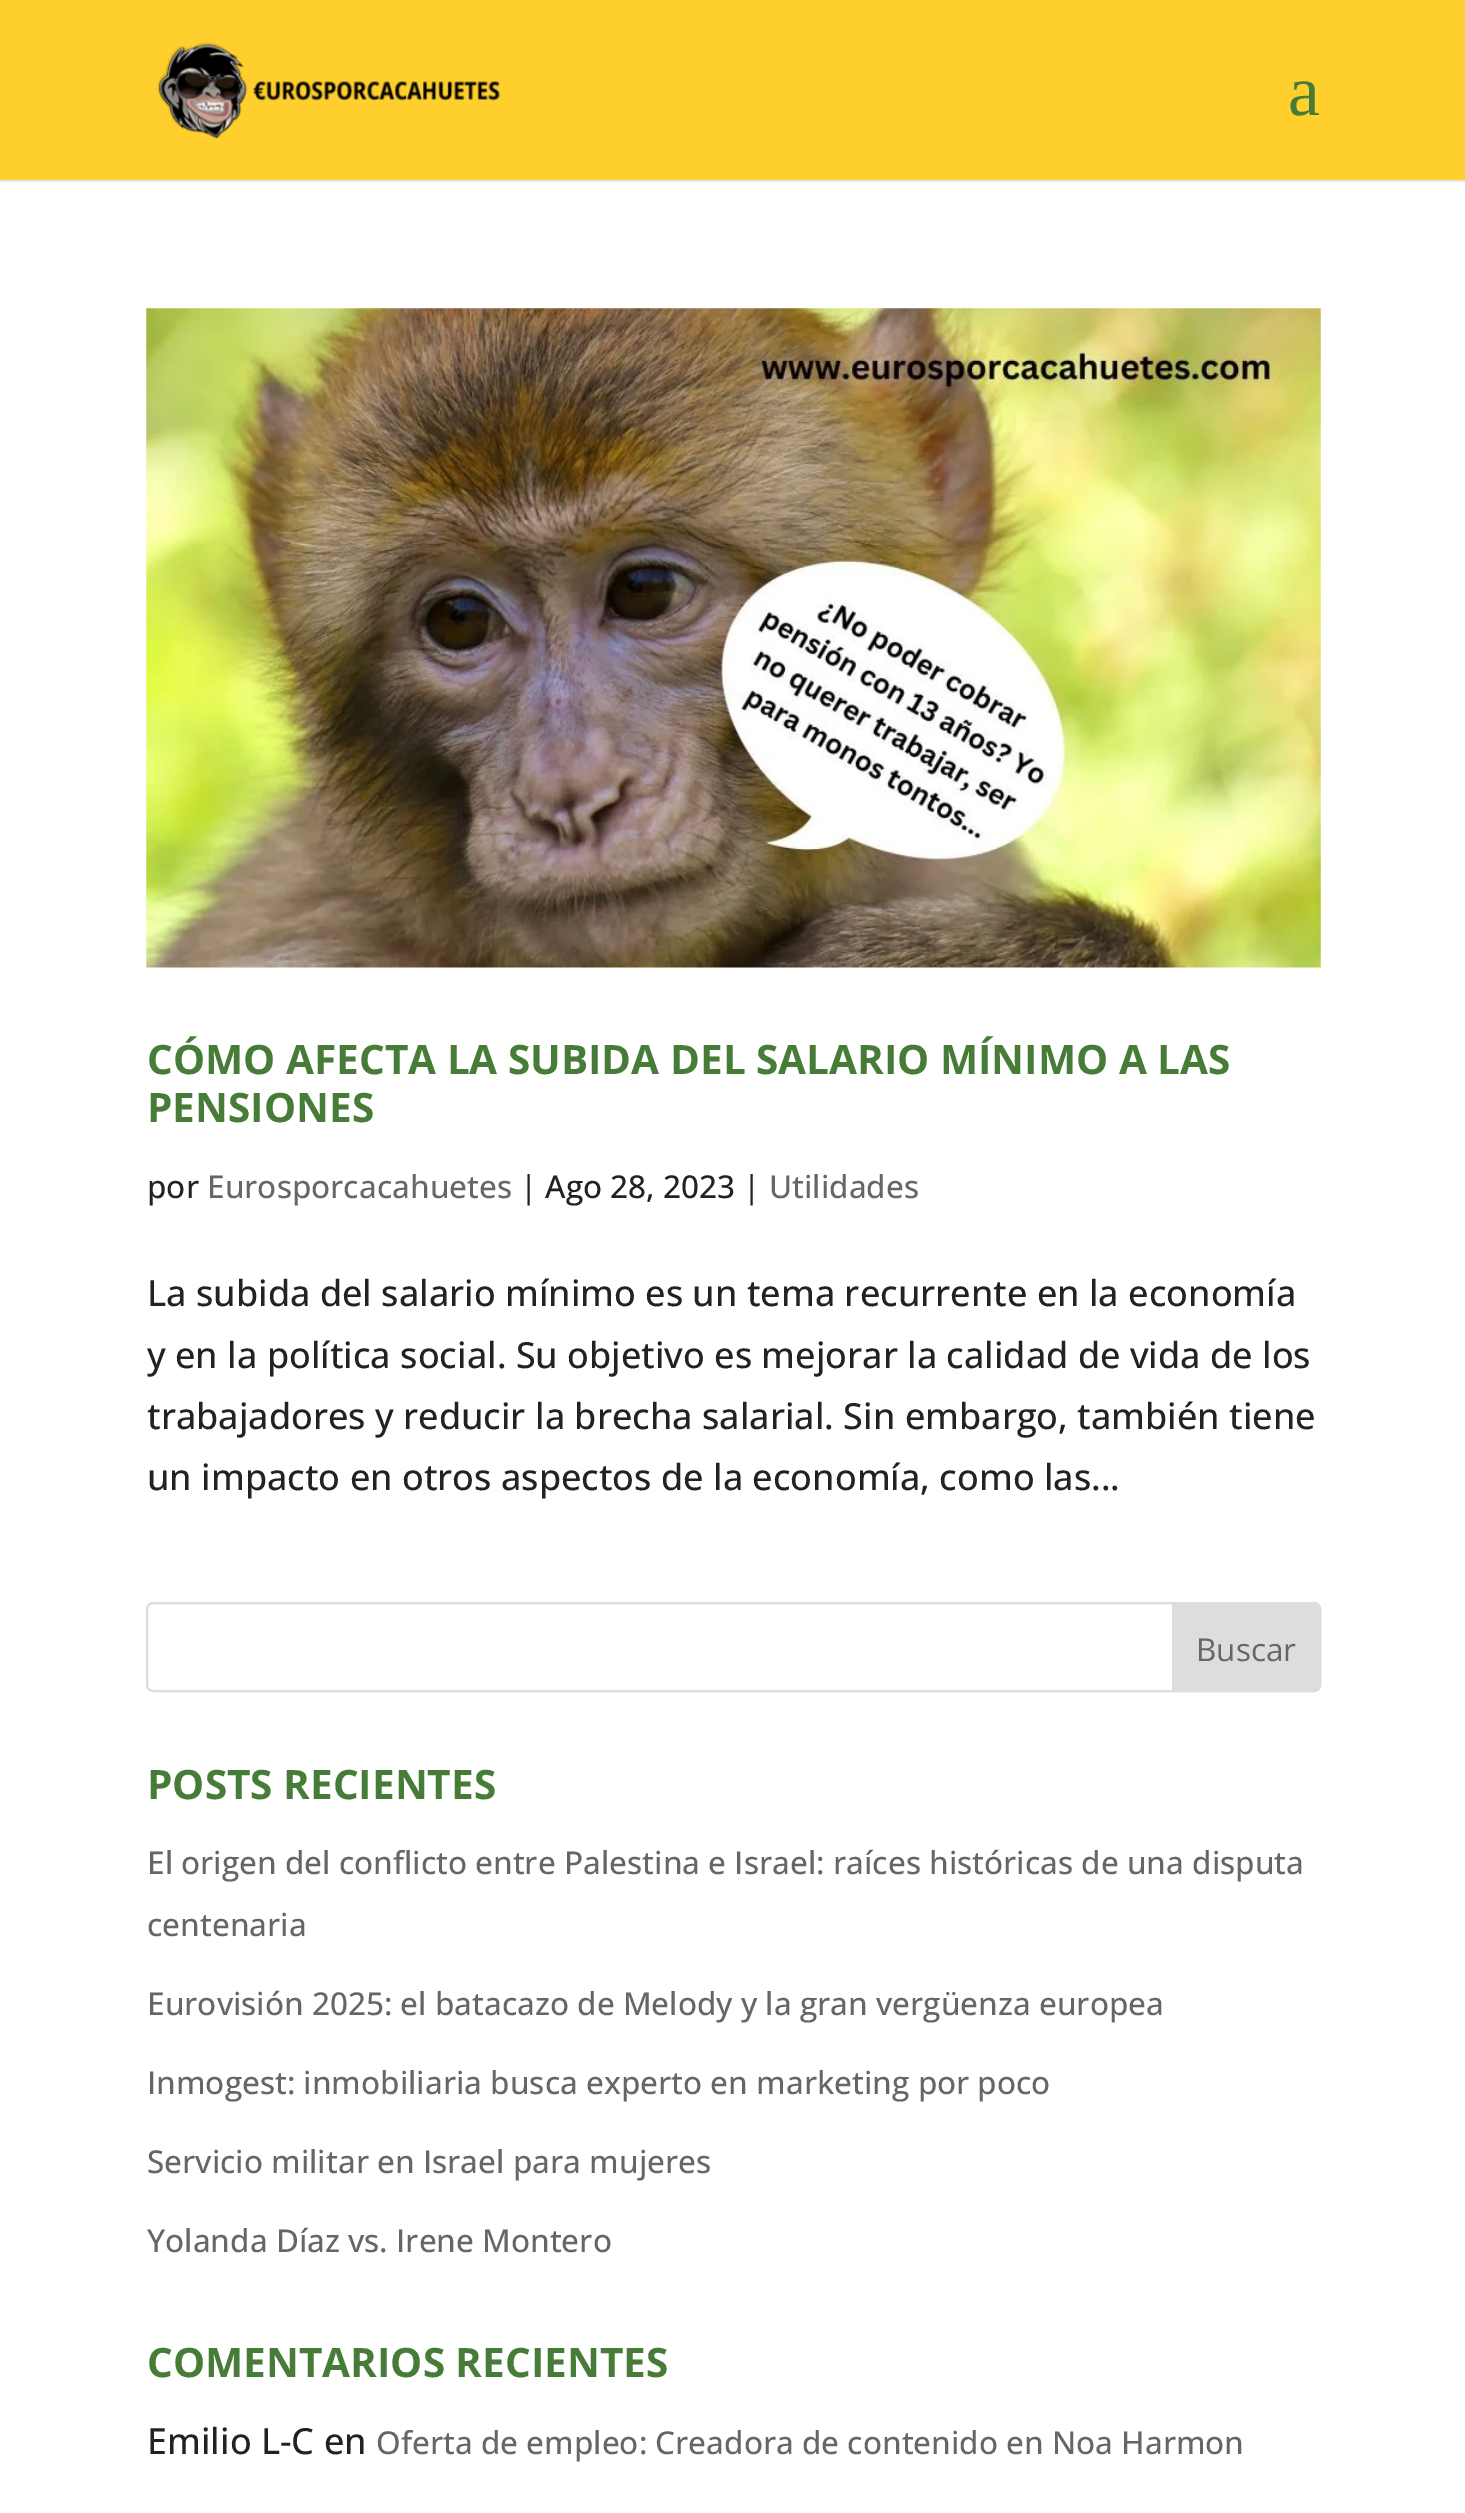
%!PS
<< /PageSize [1465 2513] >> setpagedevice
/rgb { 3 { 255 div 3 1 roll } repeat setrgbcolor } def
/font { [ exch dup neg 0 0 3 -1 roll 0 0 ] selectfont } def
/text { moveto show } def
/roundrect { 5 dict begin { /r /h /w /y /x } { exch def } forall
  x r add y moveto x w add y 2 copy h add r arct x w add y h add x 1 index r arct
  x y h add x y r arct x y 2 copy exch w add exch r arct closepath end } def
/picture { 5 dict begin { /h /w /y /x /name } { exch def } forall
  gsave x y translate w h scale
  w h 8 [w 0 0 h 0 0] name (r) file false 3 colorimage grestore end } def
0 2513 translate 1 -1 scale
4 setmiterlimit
255 255 255 rgb
0 0 1465 2513 rectfill
230 230 230 rgb
0 180 1465 2 rectfill
255 207 46 rgb
0 0 1465 180 rectfill
(img_01.rgb) 157 42 344 97 picture
(img_02.rgb) 146 308 1175 660 picture
221 221 221 rgb
2 setlinewidth
147 1603 1173 88 6 roundrect stroke
1173 1603 moveto 141 0 rlineto 3.5 0 6 2.5 6 6 rcurveto 0 76 rlineto 0 3.5 -2.5 6 -6 6 rcurveto -141 0 rlineto closepath gsave fill grestore
stroke
/LiberationSerif-Regular 72 font
70 124 55 rgb
(a) 1288 115 text
/OpenSans-Bold 40.5 font
(CÓMO AFECTA LA SUBIDA DEL SALARIO MÍNIMO A LAS) 147 1074 text
(PENSIONES) 147 1122 text
/OpenSans-Medium 31.5 font
34 34 34 rgb
(por) 147 1198 text
102 102 102 rgb
(Eurosporcacahuetes) 207 1198 text
34 34 34 rgb
(| Ago 28, 2023 |) 520 1198 text
102 102 102 rgb
(Utilidades) 769 1198 text
/OpenSans-Medium 36 font
34 34 34 rgb
(La subida del salario mínimo es un tema recurrente en la economía) 147 1306 text
(y en la política social. Su objetivo es mejorar la calidad de vida de los) 147 1368 text
(trabajadores y reducir la brecha salarial. Sin embargo, también tiene) 147 1429 text
(un impacto en otros aspectos de la economía, como las...) 147 1490 text
/OpenSans-Regular 31.5 font
102 102 102 rgb
(Buscar) 1196 1661 text
/OpenSans-Bold 40.5 font
70 124 55 rgb
(POSTS RECIENTES) 147 1799 text
/OpenSans-Medium 31.5 font
102 102 102 rgb
(El origen del conflicto entre Palestina e Israel: raíces históricas de una disputa) 147 1874 text
(centenaria) 147 1936 text
(Eurovisión 2025: el batacazo de Melody y la gran vergüenza europea) 147 2015 text
(Inmogest: inmobiliaria busca experto en marketing por poco) 147 2094 text
(Servicio militar en Israel para mujeres) 147 2173 text
(Yolanda Díaz vs. Irene Montero) 147 2252 text
/OpenSans-Bold 40.5 font
70 124 55 rgb
(COMENTARIOS RECIENTES) 147 2377 text
/OpenSans-Medium 36 font
34 34 34 rgb
(Emilio L-C en) 147 2454 text
/OpenSans-Medium 31.5 font
102 102 102 rgb
(Oferta de empleo: Creadora de contenido en Noa Harmon) 376 2454 text
showpage
